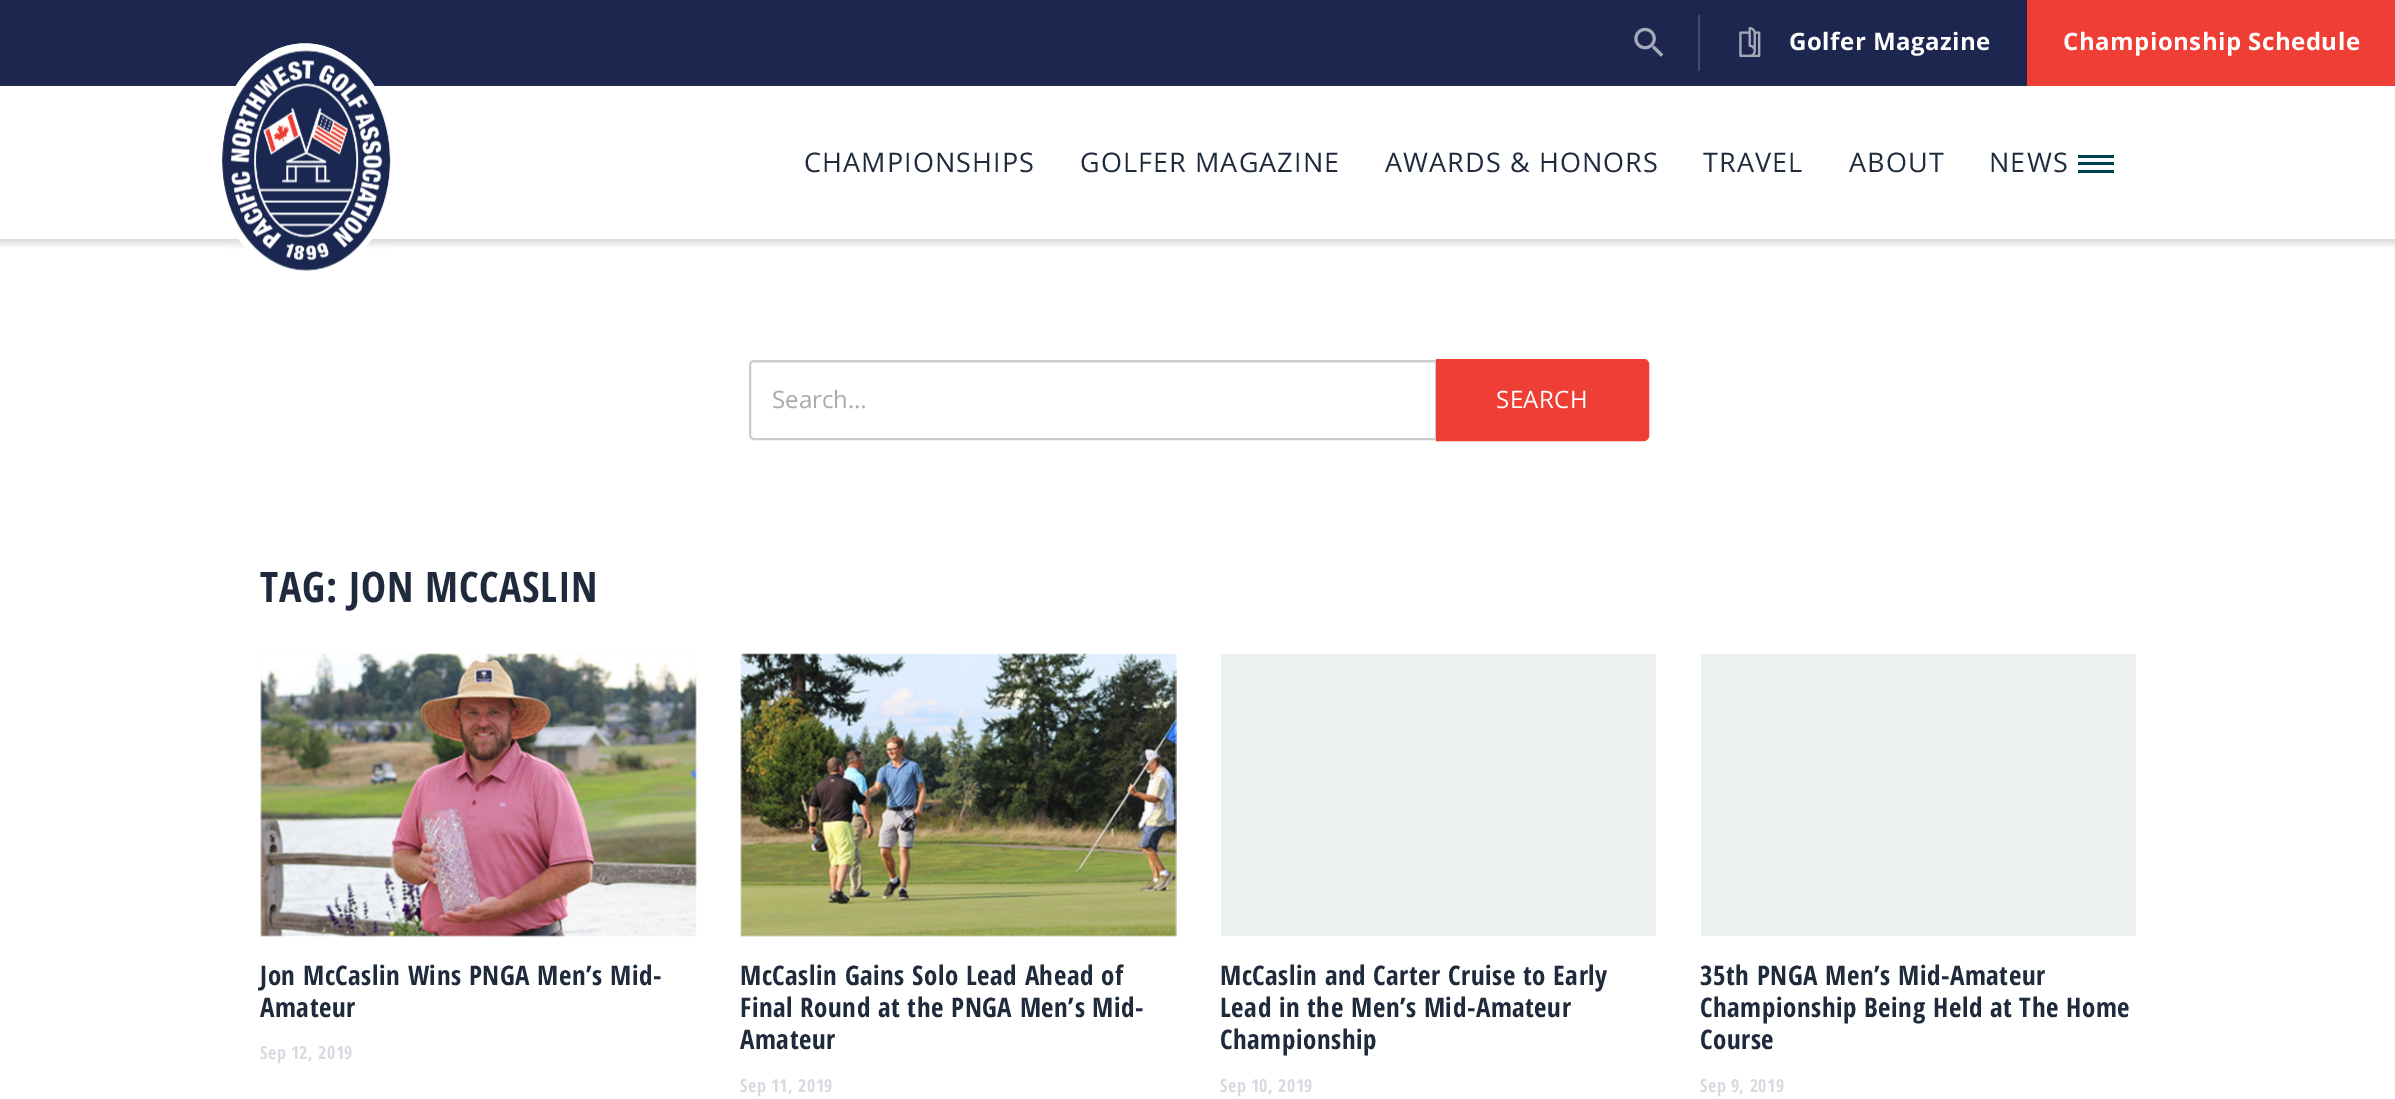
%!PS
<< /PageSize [2395 1099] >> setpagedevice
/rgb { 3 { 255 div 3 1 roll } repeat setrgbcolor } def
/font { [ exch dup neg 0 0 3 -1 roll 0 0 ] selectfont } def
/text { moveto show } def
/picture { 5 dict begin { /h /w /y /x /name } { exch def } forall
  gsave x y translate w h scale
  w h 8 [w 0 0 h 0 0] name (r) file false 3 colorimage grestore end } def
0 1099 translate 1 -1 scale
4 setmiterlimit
255 255 255 rgb
0 0 2395 1099 rectfill
28 38 79 rgb
0 0 2027 86 rectfill
(img_01.rgb) 1634 27 30 30 picture
69 77 111 rgb
1698 15 2 56 rectfill
(img_02.rgb) 1739 27 22 30 picture
239 62 53 rgb
2027 0 368 86 rectfill
gsave 0 239 moveto 2395 0 rlineto 0 9 rlineto -2395 0 rlineto closepath clip newpath
<< /ShadingType 2 /ColorSpace /DeviceRGB /Coords [1198 238 1198 249] /Extend [true true] /Function << /FunctionType 2 /Domain [0 1] /C0 [0.839 0.839 0.839] /C1 [1 1 1] /N 1 >> >> shfill grestore
255 255 255 rgb
305 43.5 moveto 49.5 0 90 52.5 90 117 rcurveto 0 64.5 -40.5 117 -90 117 rcurveto -49.5 0 -90 -52.5 -90 -117 rcurveto 0 -64.5 40.5 -117 90 -117 rcurveto closepath fill
6 setlinewidth
305 46.5 moveto 48 0 87 51 87 114 rcurveto 0 63 -39 114 -87 114 rcurveto -48 0 -86.5 -51 -86.5 -114 rcurveto 0 -63 38.5 -114 86.5 -114 rcurveto closepath stroke
(img_03.rgb) 222 50 169 221 picture
0 62 81 rgb
2078 155 36 3 rectfill
2078 162 36 3 rectfill
2078 170 36 3 rectfill
236 236 236 rgb
753 363 moveto 683 0 rlineto 0 -1 rlineto -683 0 rlineto -2 0 -3 1 -3 3 rcurveto 0 1 rlineto 0 -2 1 -3 3 -3 rcurveto closepath fill
204 204 204 rgb
2 setlinewidth
754 361 moveto 682 0 rlineto 0 78 rlineto -682 0 rlineto -2 0 -4 -2 -4 -4 rcurveto 0 -70 rlineto 0 -2 2 -4 4 -4 rcurveto closepath stroke
239 62 53 rgb
1437 360 moveto 207 0 rlineto 2 0 4 2 4 4 rcurveto 0 72 rlineto 0 2 -2 4 -4 4 rcurveto -207 0 rlineto closepath gsave fill grestore
stroke
237 240 241 rgb
261 654 435 282 rectfill
(img_04.rgb) 260 653 437 284 picture
741 654 435 282 rectfill
(img_05.rgb) 740 653 437 284 picture
1221 654 435 282 rectfill
1701 654 435 282 rectfill
/OpenSans-Bold 24 font
255 255 255 rgb
1789 50 moveto 0.5 0 (Golfer Magazine) ashow
2063 50 moveto 0.5 0 (Championship Schedule) ashow
/OpenSans-Regular 27 font
31 43 60 rgb
804 172 moveto 1.1 0 (CHAMPIONSHIPS) ashow
1080 172 moveto 1.1 0 (GOLFER MAGAZINE) ashow
1385 172 moveto 1.1 0 (AWARDS & HONORS) ashow
1703 172 moveto 1.1 0 (TRAVEL) ashow
1849 172 moveto 1.1 0 (ABOUT) ashow
1989 172 moveto 1.1 0 (NEWS) ashow
/OpenSans-Regular 24 font
170 170 170 rgb
(Search…) 772 408 text
255 255 255 rgb
1496 408 moveto 0.5 0 (SEARCH) ashow
/OpenSansCondensed-Bold 42 font
31 43 60 rgb
260 602 moveto 0.8 0 (TAG: JON MCCASLIN) ashow
/OpenSansCondensed-Bold 27 font
260 985 moveto 0.55 0 (Jon McCaslin Wins PNGA Men’s Mid-) ashow
260 1017 moveto 0.55 0 (Amateur) ashow
/OpenSansCondensed-Bold 18 font
215 219 225 rgb
260 1059 moveto 0.4 0 (Sep 12, 2019) ashow
/OpenSansCondensed-Bold 27 font
31 43 60 rgb
740 985 moveto 0.55 0 (McCaslin Gains Solo Lead Ahead of) ashow
740 1017 moveto 0.55 0 (Final Round at the PNGA Men’s Mid-) ashow
740 1049 moveto 0.55 0 (Amateur) ashow
/OpenSansCondensed-Bold 18 font
215 219 225 rgb
740 1092 moveto 0.4 0 (Sep 11, 2019) ashow
/OpenSansCondensed-Bold 27 font
31 43 60 rgb
1220 985 moveto 0.55 0 (McCaslin and Carter Cruise to Early) ashow
1220 1017 moveto 0.55 0 (Lead in the Men’s Mid-Amateur) ashow
1220 1049 moveto 0.55 0 (Championship) ashow
/OpenSansCondensed-Bold 18 font
215 219 225 rgb
1220 1092 moveto 0.4 0 (Sep 10, 2019) ashow
/OpenSansCondensed-Bold 27 font
31 43 60 rgb
1700 985 moveto 0.55 0 (35th PNGA Men’s Mid-Amateur) ashow
1700 1017 moveto 0.55 0 (Championship Being Held at The Home) ashow
1700 1049 moveto 0.55 0 (Course) ashow
/OpenSansCondensed-Bold 18 font
215 219 225 rgb
1700 1092 moveto 0.4 0 (Sep 9, 2019) ashow
showpage
